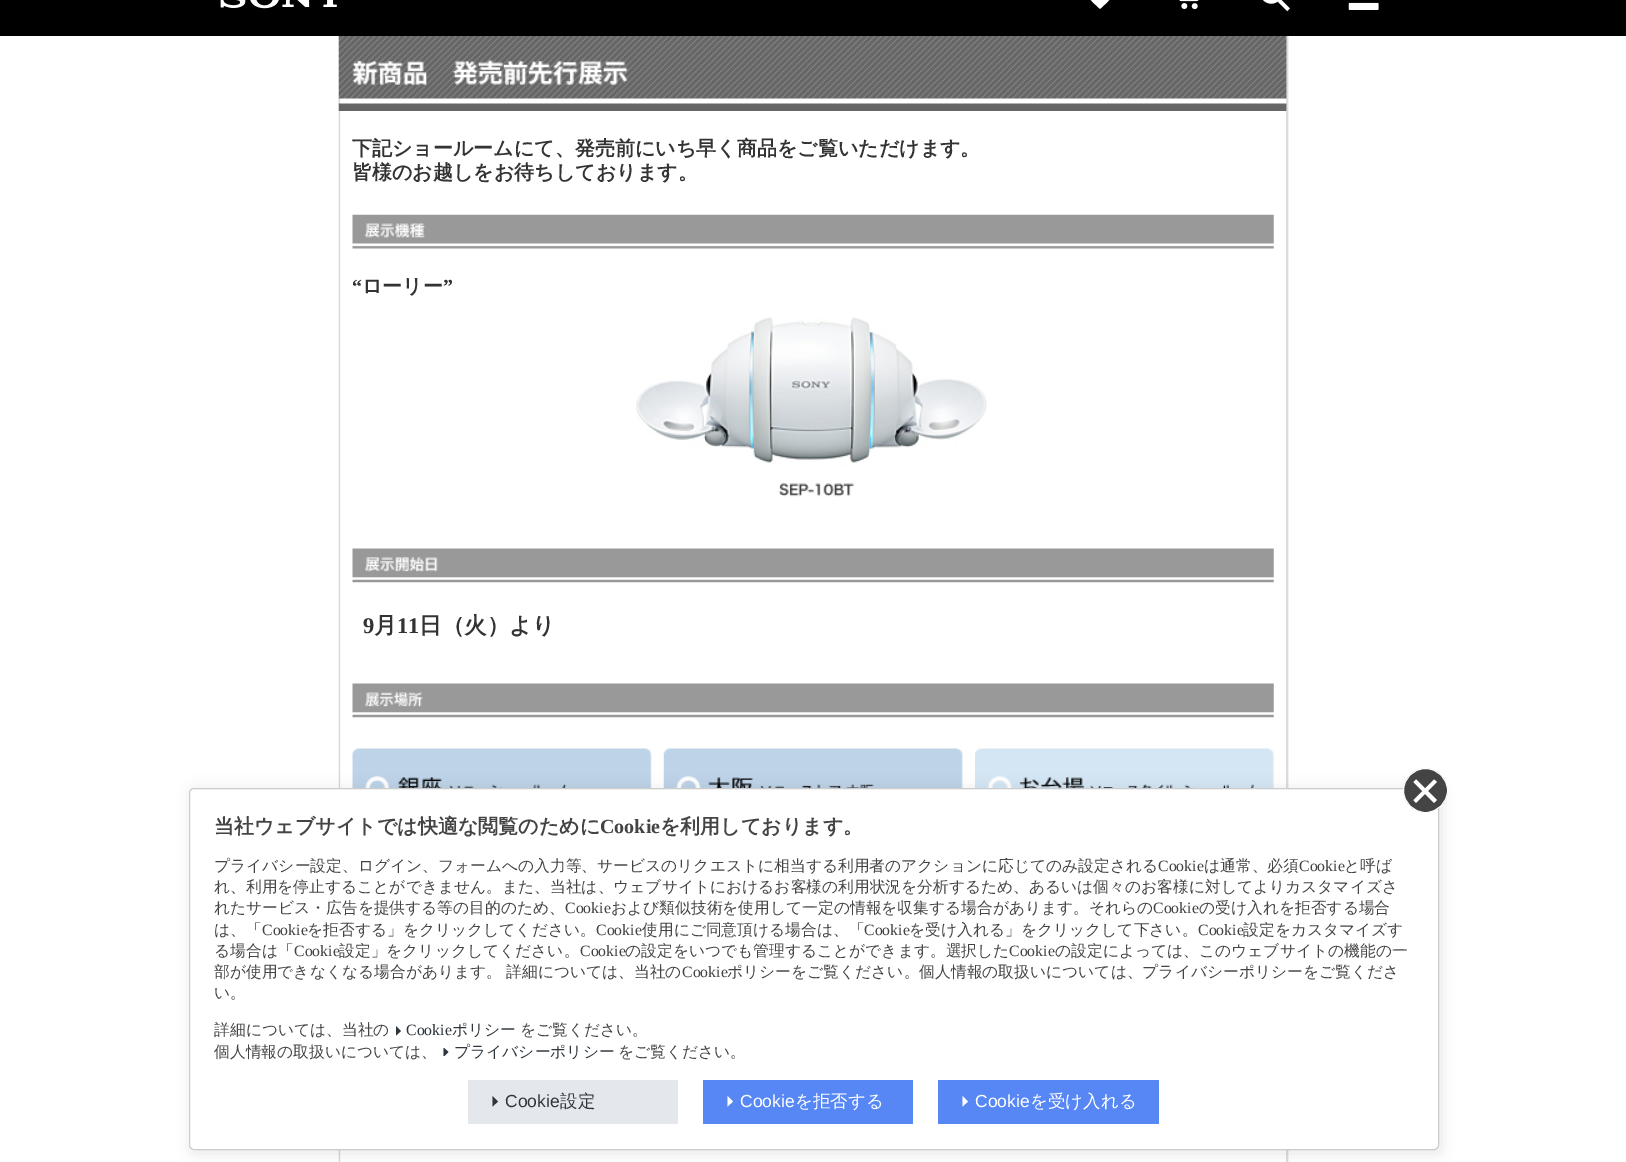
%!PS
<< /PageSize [1626 1162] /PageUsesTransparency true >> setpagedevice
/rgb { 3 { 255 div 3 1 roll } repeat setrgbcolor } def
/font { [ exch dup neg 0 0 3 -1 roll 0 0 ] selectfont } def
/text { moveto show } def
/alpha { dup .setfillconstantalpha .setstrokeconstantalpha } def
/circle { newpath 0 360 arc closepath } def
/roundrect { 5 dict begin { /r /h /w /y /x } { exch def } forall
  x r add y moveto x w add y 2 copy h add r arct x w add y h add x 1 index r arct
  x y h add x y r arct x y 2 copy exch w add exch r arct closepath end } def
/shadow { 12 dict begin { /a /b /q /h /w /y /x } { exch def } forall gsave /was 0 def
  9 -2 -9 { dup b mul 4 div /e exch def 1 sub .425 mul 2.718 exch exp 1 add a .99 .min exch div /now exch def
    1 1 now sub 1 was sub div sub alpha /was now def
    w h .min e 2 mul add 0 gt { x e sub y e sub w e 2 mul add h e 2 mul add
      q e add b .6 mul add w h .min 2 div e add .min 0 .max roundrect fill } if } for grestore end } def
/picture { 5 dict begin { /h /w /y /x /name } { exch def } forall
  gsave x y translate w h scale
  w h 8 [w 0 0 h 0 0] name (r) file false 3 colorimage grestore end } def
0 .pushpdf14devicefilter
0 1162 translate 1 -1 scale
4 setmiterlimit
255 255 255 rgb
0 0 1626 1162 rectfill
0 0 0 rgb
0 0 1626 36 rectfill
(img_01.rgb) 220 0 117 9 picture
255 255 255 rgb
1100 9 moveto -4 -4 -10.5 -9 -13 -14.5 rcurveto -4.5 -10 9.5 -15.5 13 -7 rcurveto 3.5 -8.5 17.5 -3 13 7 rcurveto -3 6 -8.5 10 -13 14.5 rcurveto closepath fill
(img_02.rgb) 1179 0 20 10 picture
(img_03.rgb) 1263 0 27 12 picture
(img_04.rgb) 1348 2 31 8 picture
(img_05.rgb) 338 36 951 1126 picture
(img_06.rgb) 338 36 949 75 picture
(img_07.rgb) 352 214 922 35 picture
(img_08.rgb) 636 317 351 180 picture
(img_09.rgb) 352 548 922 35 picture
(img_10.rgb) 352 683 922 35 picture
(img_11.rgb) 352 748 300 40 picture
(img_12.rgb) 663 748 300 40 picture
(img_13.rgb) 975 748 299 40 picture
0 0 0 rgb
191 790 1250 363 5 7.5 0.1 shadow
255 255 255 rgb
189.5 788.5 1249 361 4.5 roundrect gsave fill grestore
204 204 204 rgb
stroke
68 68 68 rgb
1425.5 790.5 22 circle gsave fill grestore
255 255 255 rgb
stroke
1413.5 800 moveto 20.5 -20.5 rlineto 3 2.5 rlineto -21 21 rlineto closepath fill
1416 779.5 moveto 21 20.5 rlineto -3 3 rlineto -20.5 -21 rlineto closepath fill
47 53 61 rgb
396 1026 moveto 5 5 rlineto -5 4.5 rlineto closepath fill
gsave
441 1048 10 8 rectclip
443.5 1047.5 moveto 5 4.5 rlineto -5 5 rlineto closepath fill
grestore
228 231 236 rgb
468 1080 210 44 1 roundrect fill
47 53 61 rgb
492.5 1096 moveto 5.5 5.5 rlineto -5.5 5 rlineto closepath fill
87 135 244 rgb
703 1080 210 44 1 roundrect fill
255 255 255 rgb
727.5 1096 moveto 5.5 5.5 rlineto -5.5 5 rlineto closepath fill
87 135 244 rgb
938 1080 221 44 1 roundrect fill
255 255 255 rgb
962.5 1096 moveto 5.5 5.5 rlineto -5.5 5 rlineto closepath fill
/WenQuanYiZenHei-Bold 20 font
51 51 51 rgb
(下記ショールームにて、発売前にいち早く商品をご覧いただけます。) 352 155 text
(皆様のお越しをお待ちしております。) 352 179 text
/LiberationSerif-Bold 20 font
(“) 352 293 text
/WenQuanYiZenHei-Bold 20 font
(ローリー) 362 293 text
/LiberationSerif-Bold 20 font
(”) 443 293 text
/LiberationSerif-Bold 22.5 font
(9) 363 633 text
/WenQuanYiZenHei-Bold 22.5 font
(月) 374 633 text
/LiberationSerif-Bold 22.5 font
(11) 397 633 text
/WenQuanYiZenHei-Bold 22.5 font
(日（火）より) 419 633 text
/WenQuanYiZenHei-Bold 20 font
68 68 68 rgb
(当社ウェブサイトでは快適な閲覧のために) 214 833 text
/LiberationSerif-Bold 20 font
(Cookie) 600 833 text
/WenQuanYiZenHei-Bold 20 font
(を利用しております。) 660 833 text
/WenQuanYiZenHei-Medium 15.75 font
(プライバシー設定、ログイン、フォームへの入力等、サービスのリクエストに相当する利用者のアクションに応じてのみ設定される) 214 871 text
/LiberationSerif-Regular 15.75 font
(Cookie) 1158 871 text
/WenQuanYiZenHei-Medium 15.75 font
(は通常、必須) 1204 871 text
/LiberationSerif-Regular 15.75 font
(Cookie) 1299 871 text
/WenQuanYiZenHei-Medium 15.75 font
(と呼ば) 1344 871 text
(れ、利用を停止することができません。また、当社は、ウェブサイトにおけるお客様の利用状況を分析するため、あるいは個々のお客様に対してよりカスタマイズさ) 214 892 text
(れたサービス・広告を提供する等の目的のため、) 214 913 text
/LiberationSerif-Regular 15.75 font
(Cookie) 565 913 text
/WenQuanYiZenHei-Medium 15.75 font
(および類似技術を使用して一定の情報を収集する場合があります。それらの) 611 913 text
/LiberationSerif-Regular 15.75 font
(Cookie) 1153 913 text
/WenQuanYiZenHei-Medium 15.75 font
(の受け入れを拒否する場合) 1199 913 text
(は、「) 214 935 text
/LiberationSerif-Regular 15.75 font
(Cookie) 262 935 text
/WenQuanYiZenHei-Medium 15.75 font
(を拒否する」をクリックしてください。) 307 935 text
/LiberationSerif-Regular 15.75 font
(Cookie) 596 935 text
/WenQuanYiZenHei-Medium 15.75 font
(使用にご同意頂ける場合は、「) 642 935 text
/LiberationSerif-Regular 15.75 font
(Cookie) 864 935 text
/WenQuanYiZenHei-Medium 15.75 font
(を受け入れる」をクリックして下さい。) 909 935 text
/LiberationSerif-Regular 15.75 font
(Cookie) 1198 935 text
/WenQuanYiZenHei-Medium 15.75 font
(設定をカスタマイズす) 1243 935 text
(る場合は「) 214 956 text
/LiberationSerif-Regular 15.75 font
(Cookie) 294 956 text
/WenQuanYiZenHei-Medium 15.75 font
(設定」をクリックしてください。) 339 956 text
/LiberationSerif-Regular 15.75 font
(Cookie) 580 956 text
/WenQuanYiZenHei-Medium 15.75 font
(の設定をいつでも管理することができます。選択した) 625 956 text
/LiberationSerif-Regular 15.75 font
(Cookie) 1009 956 text
/WenQuanYiZenHei-Medium 15.75 font
(の設定によっては、このウェブサイトの機能の一) 1055 956 text
(部が使用できなくなる場合があります。) 214 977 text
(詳細については、当社の) 506 977 text
/LiberationSerif-Regular 15.75 font
(Cookie) 682 977 text
/WenQuanYiZenHei-Medium 15.75 font
(ポリシーをご覧ください。個人情報の取扱いについては、プライバシーポリシーをご覧くださ) 727 977 text
(い。) 214 998 text
(詳細については、当社の) 214 1035 text
/LiberationSerif-Regular 15.75 font
47 53 61 rgb
(Cookie) 406 1035 text
/WenQuanYiZenHei-Medium 15.75 font
(ポリシー) 452 1035 text
68 68 68 rgb
(をご覧ください。) 520 1035 text
(個人情報の取扱いについては、) 214 1057 text
47 53 61 rgb
(プライバシーポリシー) 454 1057 text
68 68 68 rgb
(をご覧ください。) 618 1057 text
/LiberationSans-Regular 17.5 font
47 53 61 rgb
(Cookie) 505 1107 text
/WenQuanYiZenHei-Medium 17.5 font
(設定) 560 1107 text
/LiberationSans-Regular 17.5 font
255 255 255 rgb
(Cookie) 740 1107 text
/WenQuanYiZenHei-Medium 17.5 font
(を拒否する) 795 1107 text
/LiberationSans-Regular 17.5 font
(Cookie) 975 1107 text
/WenQuanYiZenHei-Medium 17.5 font
(を受け入れる) 1030 1107 text
.poppdf14devicefilter showpage
